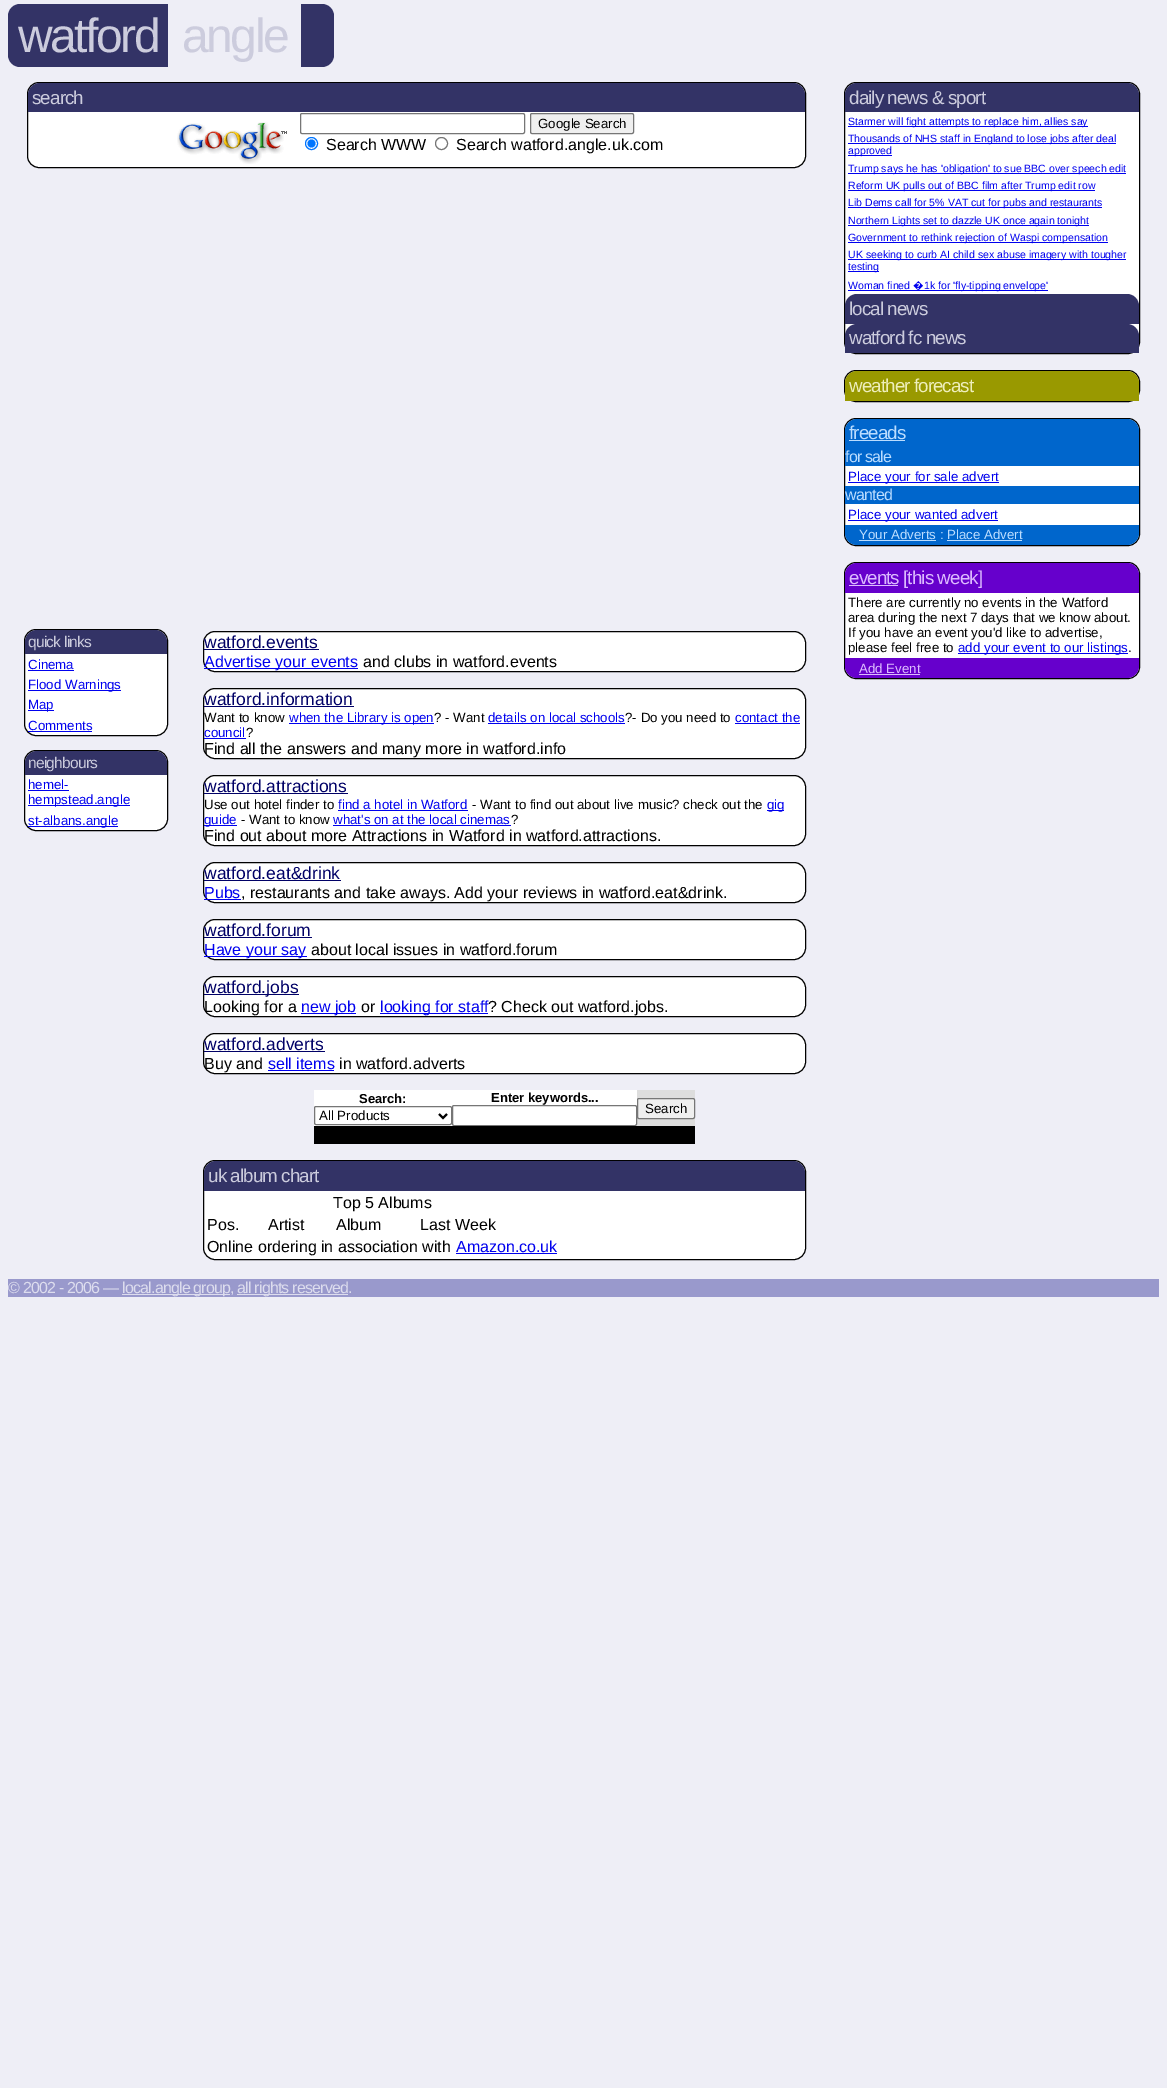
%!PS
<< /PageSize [1167 2088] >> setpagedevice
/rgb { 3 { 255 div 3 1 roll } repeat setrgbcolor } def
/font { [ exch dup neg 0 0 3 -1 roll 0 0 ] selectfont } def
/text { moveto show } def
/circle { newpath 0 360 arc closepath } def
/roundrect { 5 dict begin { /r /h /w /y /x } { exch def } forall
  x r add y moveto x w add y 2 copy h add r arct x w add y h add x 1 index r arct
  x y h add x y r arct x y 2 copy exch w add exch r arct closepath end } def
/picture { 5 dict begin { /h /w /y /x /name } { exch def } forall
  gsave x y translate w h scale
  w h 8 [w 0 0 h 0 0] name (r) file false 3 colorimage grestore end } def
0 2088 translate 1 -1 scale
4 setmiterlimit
238 238 246 rgb
0 0 1167 2088 rectfill
51 51 102 rgb
20 4 moveto 148 0 rlineto 0 63 rlineto -148 0 rlineto -6.5 0 -12 -5.5 -12 -12 rcurveto 0 -39 rlineto 0 -6.5 5.5 -12 12 -12 rcurveto closepath fill
301 4 moveto 21 0 rlineto 6.5 0 12 5.5 12 12 rcurveto 0 39 rlineto 0 6.5 -5.5 12 -12 12 rcurveto -21 0 rlineto closepath fill
255 255 255 rgb
27.5 82.5 778 85 11.5 roundrect gsave fill grestore
0 0 0 rgb
stroke
51 51 102 rgb
40 83 moveto 753 0 rlineto 6.5 0 12 5.5 12 12 rcurveto 0 17 rlineto -777 0 rlineto 0 -17 rlineto 0 -6.5 5.5 -12 12 -12 rcurveto closepath fill
(img_01.rgb) 177 122 110 42 picture
118 118 118 rgb
300.5 113.5 224 20 1.5 roundrect stroke
239 239 239 rgb
530.5 113.5 103 20 1.5 roundrect gsave fill grestore
118 118 118 rgb
stroke
0 117 255 rgb
311.5 143.5 6 circle stroke
311.5 143.5 4 circle fill
118 118 118 rgb
441.5 143.5 6 circle stroke
255 255 255 rgb
844.5 82.5 295 271 11.5 roundrect gsave fill grestore
0 0 0 rgb
stroke
51 51 102 rgb
857 83 moveto 270 0 rlineto 6.5 0 12 5.5 12 12 rcurveto 0 17 rlineto -294 0 rlineto 0 -17 rlineto 0 -6.5 5.5 -12 12 -12 rcurveto closepath fill
0 0 238 rgb
848 126 240 1 rectfill
848 143 268 1 rectfill
848 155 44 1 rectfill
848 173 278 1 rectfill
848 190 247 1 rectfill
848 207 254 1 rectfill
848 225 241 1 rectfill
848 242 260 1 rectfill
848 259 278 1 rectfill
848 271 31 1 rectfill
848 290 200 1 rectfill
51 51 102 rgb
857 294 moveto 270 0 rlineto 6.5 0 12 5.5 12 12 rcurveto 0 18 rlineto -294 0 rlineto 0 -18 rlineto 0 -6.5 5.5 -12 12 -12 rcurveto closepath fill
857 324 moveto 270 0 rlineto 6.5 0 12 5.5 12 12 rcurveto 0 17 rlineto -294 0 rlineto 0 -17 rlineto 0 -6.5 5.5 -12 12 -12 rcurveto closepath fill
255 255 255 rgb
844.5 370.5 295 31 11.5 roundrect gsave fill grestore
0 0 0 rgb
stroke
153 153 0 rgb
857 371 moveto 270 0 rlineto 6.5 0 12 5.5 12 12 rcurveto 0 18 rlineto -294 0 rlineto 0 -18 rlineto 0 -6.5 5.5 -12 12 -12 rcurveto closepath fill
255 255 255 rgb
844.5 418.5 295 127 11.5 roundrect gsave fill grestore
0 0 0 rgb
stroke
0 102 204 rgb
857 419 moveto 270 0 rlineto 6.5 0 12 5.5 12 12 rcurveto 0 17 rlineto -294 0 rlineto 0 -17 rlineto 0 -6.5 5.5 -12 12 -12 rcurveto closepath fill
187 221 255 rgb
849 440 56 1 rectfill
0 102 204 rgb
845 448 294 18 rectfill
0 0 238 rgb
848 482 151 1 rectfill
0 102 204 rgb
845 486 294 18 rectfill
0 0 238 rgb
848 520 150 1 rectfill
0 102 204 rgb
845 525 moveto 294 0 rlineto 0 8 rlineto 0 6.5 -5.5 12 -12 12 rcurveto -270 0 rlineto -6.5 0 -12 -5.5 -12 -12 rcurveto closepath fill
187 221 255 rgb
859 540 77 1 rectfill
947 540 75 1 rectfill
255 255 255 rgb
844.5 562.5 295 116 11.5 roundrect gsave fill grestore
0 0 0 rgb
stroke
102 0 204 rgb
857 563 moveto 270 0 rlineto 6.5 0 12 5.5 12 12 rcurveto 0 18 rlineto -294 0 rlineto 0 -18 rlineto 0 -6.5 5.5 -12 12 -12 rcurveto closepath fill
221 187 255 rgb
849 585 49 1 rectfill
0 0 238 rgb
958 653 170 1 rectfill
102 0 204 rgb
845 658 moveto 294 0 rlineto 0 8 rlineto 0 6.5 -5.5 12 -12 12 rcurveto -270 0 rlineto -6.5 0 -12 -5.5 -12 -12 rcurveto closepath fill
221 187 255 rgb
859 674 61 1 rectfill
255 255 255 rgb
24.5 629.5 143 106 11.5 roundrect gsave fill grestore
0 0 0 rgb
stroke
51 51 102 rgb
37 630 moveto 118 0 rlineto 6.5 0 12 5.5 12 12 rcurveto 0 12 rlineto -142 0 rlineto 0 -12 rlineto 0 -6.5 5.5 -12 12 -12 rcurveto closepath fill
0 0 238 rgb
28 670 46 1 rectfill
28 690 93 1 rectfill
28 710 26 1 rectfill
28 731 64 1 rectfill
255 255 255 rgb
24.5 750.5 143 80 11.5 roundrect gsave fill grestore
0 0 0 rgb
stroke
51 51 102 rgb
37 751 moveto 118 0 rlineto 6.5 0 12 5.5 12 12 rcurveto 0 12 rlineto -142 0 rlineto 0 -12 rlineto 0 -6.5 5.5 -12 12 -12 rcurveto closepath fill
0 0 238 rgb
28 790 41 1 rectfill
28 805 102 1 rectfill
28 826 90 1 rectfill
255 255 255 rgb
203.5 631.5 602 40 11.5 roundrect gsave fill grestore
0 0 0 rgb
stroke
0 0 102 rgb
204 649 115 1 rectfill
0 0 238 rgb
204 668 154 1 rectfill
255 255 255 rgb
203.5 688.5 602 70 11.5 roundrect gsave fill grestore
0 0 0 rgb
stroke
0 0 102 rgb
204 706 150 1 rectfill
0 0 238 rgb
289 723 145 1 rectfill
488 723 137 1 rectfill
735 723 65 1 rectfill
204 738 42 1 rectfill
255 255 255 rgb
203.5 775.5 602 70 11.5 roundrect gsave fill grestore
0 0 0 rgb
stroke
0 0 102 rgb
204 793 144 1 rectfill
0 0 238 rgb
338 810 130 1 rectfill
767 810 17 1 rectfill
204 825 33 1 rectfill
333 825 178 1 rectfill
255 255 255 rgb
203.5 862.5 602 40 11.5 roundrect gsave fill grestore
0 0 0 rgb
stroke
0 0 102 rgb
204 880 137 1 rectfill
0 0 238 rgb
204 899 37 1 rectfill
255 255 255 rgb
203.5 919.5 602 40 11.5 roundrect gsave fill grestore
0 0 0 rgb
stroke
0 0 102 rgb
204 937 108 1 rectfill
0 0 238 rgb
204 956 103 1 rectfill
255 255 255 rgb
203.5 976.5 602 40 11.5 roundrect gsave fill grestore
0 0 0 rgb
stroke
0 0 102 rgb
204 994 95 1 rectfill
0 0 238 rgb
301 1013 55 1 rectfill
380 1013 108 1 rectfill
255 255 255 rgb
203.5 1033.5 602 40 11.5 roundrect gsave fill grestore
0 0 0 rgb
stroke
0 0 102 rgb
204 1051 121 1 rectfill
0 0 238 rgb
268 1070 66 1 rectfill
221 221 221 rgb
637 1090 58 36 rectfill
255 255 255 rgb
314 1090 323 36 rectfill
118 118 118 rgb
314.5 1106.5 137 18 1.5 roundrect stroke
0 0 0 rgb
2 setlinewidth
439 1114 moveto 4 4 rlineto 4 -4 rlineto stroke
118 118 118 rgb
1 setlinewidth
452.5 1105.5 184 20 1.5 roundrect stroke
239 239 239 rgb
637.5 1098.5 57 20 1.5 roundrect gsave fill grestore
118 118 118 rgb
stroke
0 0 0 rgb
314 1126 381 18 rectfill
255 255 255 rgb
203.5 1160.5 602 99 11.5 roundrect gsave fill grestore
0 0 0 rgb
stroke
51 51 102 rgb
216 1161 moveto 577 0 rlineto 6.5 0 12 5.5 12 12 rcurveto 0 18 rlineto -601 0 rlineto 0 -18 rlineto 0 -6.5 5.5 -12 12 -12 rcurveto closepath fill
0 0 238 rgb
456 1253 101 1 rectfill
153 153 204 rgb
8 1279 1151 18 rectfill
221 221 238 rgb
122 1294 108 1 rectfill
237 1294 111 1 rectfill
/LiberationSans-Regular 48 font
204 204 221 rgb
18 52 moveto -2.5 0 (watford) ashow
182 52 moveto -2.5 0 (angle) ashow
/LiberationSans-Regular 18.75 font
32 104 moveto -0.9 0 (search) ashow
/LiberationSans-Regular 13.3 font
0 0 0 rgb
(Google Search) 538 128 text
/LiberationSans-Regular 16 font
(Search WWW) 326 150 text
(Search watford.angle.uk.com) 456 150 text
/LiberationSans-Regular 18.75 font
204 204 221 rgb
849 104 moveto -0.9 0 (daily news & sport) ashow
/LiberationSans-Regular 10.55 font
0 0 238 rgb
(Starmer will fight attempts to replace him, allies say) 848 125 text
(Thousands of NHS staff in England to lose jobs after deal) 848 142 text
(approved) 848 154 text
(Trump says he has 'obligation' to sue BBC over speech edit) 848 172 text
(Reform UK pulls out of BBC film after Trump edit row) 848 189 text
(Lib Dems call for 5% VAT cut for pubs and restaurants) 848 206 text
(Northern Lights set to dazzle UK once again tonight) 848 224 text
(Government to rethink rejection of Waspi compensation) 848 241 text
(UK seeking to curb AI child sex abuse imagery with tougher) 848 258 text
(testing) 848 270 text
(Woman fined) 848 289 text
/NotoSans-Regular 10.55 font
(�) 913 289 text
/LiberationSans-Regular 10.55 font
(1k for 'fly-tipping envelope') 924 289 text
/LiberationSans-Regular 18.75 font
204 204 221 rgb
849 315 moveto -0.9 0 (local news) ashow
849 344 moveto -0.9 0 (watford fc news) ashow
238 238 187 rgb
849 392 moveto -0.9 0 (weather forecast) ashow
187 221 255 rgb
849 439 moveto -0.9 0 (freeads) ashow
/LiberationSans-Regular 16 font
845 462 moveto -0.8 0 (for sale) ashow
/LiberationSans-Regular 13.3 font
0 0 238 rgb
(Place your for sale advert) 848 481 text
/LiberationSans-Regular 16 font
187 221 255 rgb
845 500 moveto -0.8 0 (wanted) ashow
/LiberationSans-Regular 13.3 font
0 0 238 rgb
(Place your wanted advert) 848 519 text
187 221 255 rgb
(Your Adverts : Place Advert) 859 539 text
/LiberationSans-Regular 18.75 font
221 187 255 rgb
849 584 moveto -0.9 0 (events [this week]) ashow
/LiberationSans-Regular 13.3 font
0 0 0 rgb
(There are currently no events in the Watford) 848 607 text
(area during the next 7 days that we know about.) 848 622 text
(If you have an event you'd like to advertise,) 848 637 text
(please feel free to) 848 652 text
0 0 238 rgb
(add your event to our listings) 958 652 text
0 0 0 rgb
(.) 1128 652 text
221 187 255 rgb
(Add Event) 859 673 text
/LiberationSans-Regular 15.5 font
204 204 221 rgb
28 647 moveto -0.75 0 (quick links) ashow
/LiberationSans-Regular 13.3 font
0 0 238 rgb
(Cinema) 28 669 text
(Flood Warnings) 28 689 text
(Map) 28 709 text
(Comments) 28 730 text
/LiberationSans-Regular 15.5 font
204 204 221 rgb
28 768 moveto -0.75 0 (neighbours) ashow
/LiberationSans-Regular 13.3 font
0 0 238 rgb
(hemel-) 28 789 text
(hempstead.angle) 28 804 text
(st-albans.angle) 28 825 text
/LiberationSans-Regular 17.5 font
0 0 102 rgb
(watford.events) 204 648 text
/LiberationSans-Regular 16 font
0 0 238 rgb
(Advertise your events) 204 667 text
0 0 0 rgb
(and clubs in watford.events) 363 667 text
/LiberationSans-Regular 17.5 font
0 0 102 rgb
(watford.information) 204 705 text
/LiberationSans-Regular 13.3 font
0 0 0 rgb
(Want to know) 204 722 text
0 0 238 rgb
(when the Library is open) 289 722 text
0 0 0 rgb
(? - Want) 434 722 text
0 0 238 rgb
(details on local schools) 488 722 text
0 0 0 rgb
(?- Do you need to) 625 722 text
0 0 238 rgb
(contact the) 735 722 text
(council) 204 737 text
0 0 0 rgb
(?) 246 737 text
/LiberationSans-Regular 16 font
(Find all the answers and many more in watford.info) 204 754 text
/LiberationSans-Regular 17.5 font
0 0 102 rgb
(watford.attractions) 204 792 text
/LiberationSans-Regular 13.3 font
0 0 0 rgb
(Use out hotel finder to) 204 809 text
0 0 238 rgb
(find a hotel in Watford) 338 809 text
0 0 0 rgb
(- Want to find out about live music? check out the) 472 809 text
0 0 238 rgb
(gig) 767 809 text
(guide) 204 824 text
0 0 0 rgb
(- Want to know) 241 824 text
0 0 238 rgb
(what's on at the local cinemas) 333 824 text
0 0 0 rgb
(?) 511 824 text
/LiberationSans-Regular 16 font
(Find out about more Attractions in Watford in watford.attractions.) 204 841 text
/LiberationSans-Regular 17.5 font
0 0 102 rgb
(watford.eat&drink) 204 879 text
/LiberationSans-Regular 16 font
0 0 238 rgb
(Pubs) 204 898 text
0 0 0 rgb
(, restaurants and take aways. Add your reviews in watford.eat&drink.) 241 898 text
/LiberationSans-Regular 17.5 font
0 0 102 rgb
(watford.forum) 204 936 text
/LiberationSans-Regular 16 font
0 0 238 rgb
(Have your say) 204 955 text
0 0 0 rgb
(about local issues in watford.forum) 311 955 text
/LiberationSans-Regular 17.5 font
0 0 102 rgb
(watford.jobs) 204 993 text
/LiberationSans-Regular 16 font
0 0 0 rgb
(Looking for a) 204 1012 text
0 0 238 rgb
(new job) 301 1012 text
0 0 0 rgb
(or) 361 1012 text
0 0 238 rgb
(looking for staff) 380 1012 text
0 0 0 rgb
(? Check out watford.jobs.) 488 1012 text
/LiberationSans-Regular 17.5 font
0 0 102 rgb
(watford.adverts) 204 1050 text
/LiberationSans-Regular 16 font
0 0 0 rgb
(Buy and) 204 1069 text
0 0 238 rgb
(sell items) 268 1069 text
0 0 0 rgb
(in watford.adverts) 339 1069 text
/LiberationSans-Bold 13 font
(Search:) 359 1103 text
/LiberationSans-Regular 13.3 font
(All Products) 319 1120 text
/LiberationSans-Bold 13 font
(Enter keywords...) 491 1102 text
/LiberationSans-Regular 13.3 font
(Search) 645 1113 text
/LiberationSans-Regular 18.75 font
204 204 221 rgb
208 1182 moveto -0.9 0 (uk album chart) ashow
/LiberationSans-Regular 16 font
0 0 0 rgb
(Top 5 Albums) 333 1208 text
(Pos.) 207 1230 text
(Artist) 268 1230 text
(Album) 336 1230 text
(Last Week) 420 1230 text
(Online ordering in association with) 207 1252 text
0 0 238 rgb
(Amazon.co.uk) 456 1252 text
221 221 238 rgb
8 1293 moveto -0.8 0 (© 2002 - 2006 —) ashow
122 1293 moveto -0.8 0 (local.angle group,) ashow
237 1293 moveto -0.8 0 (all rights reserved.) ashow
showpage
